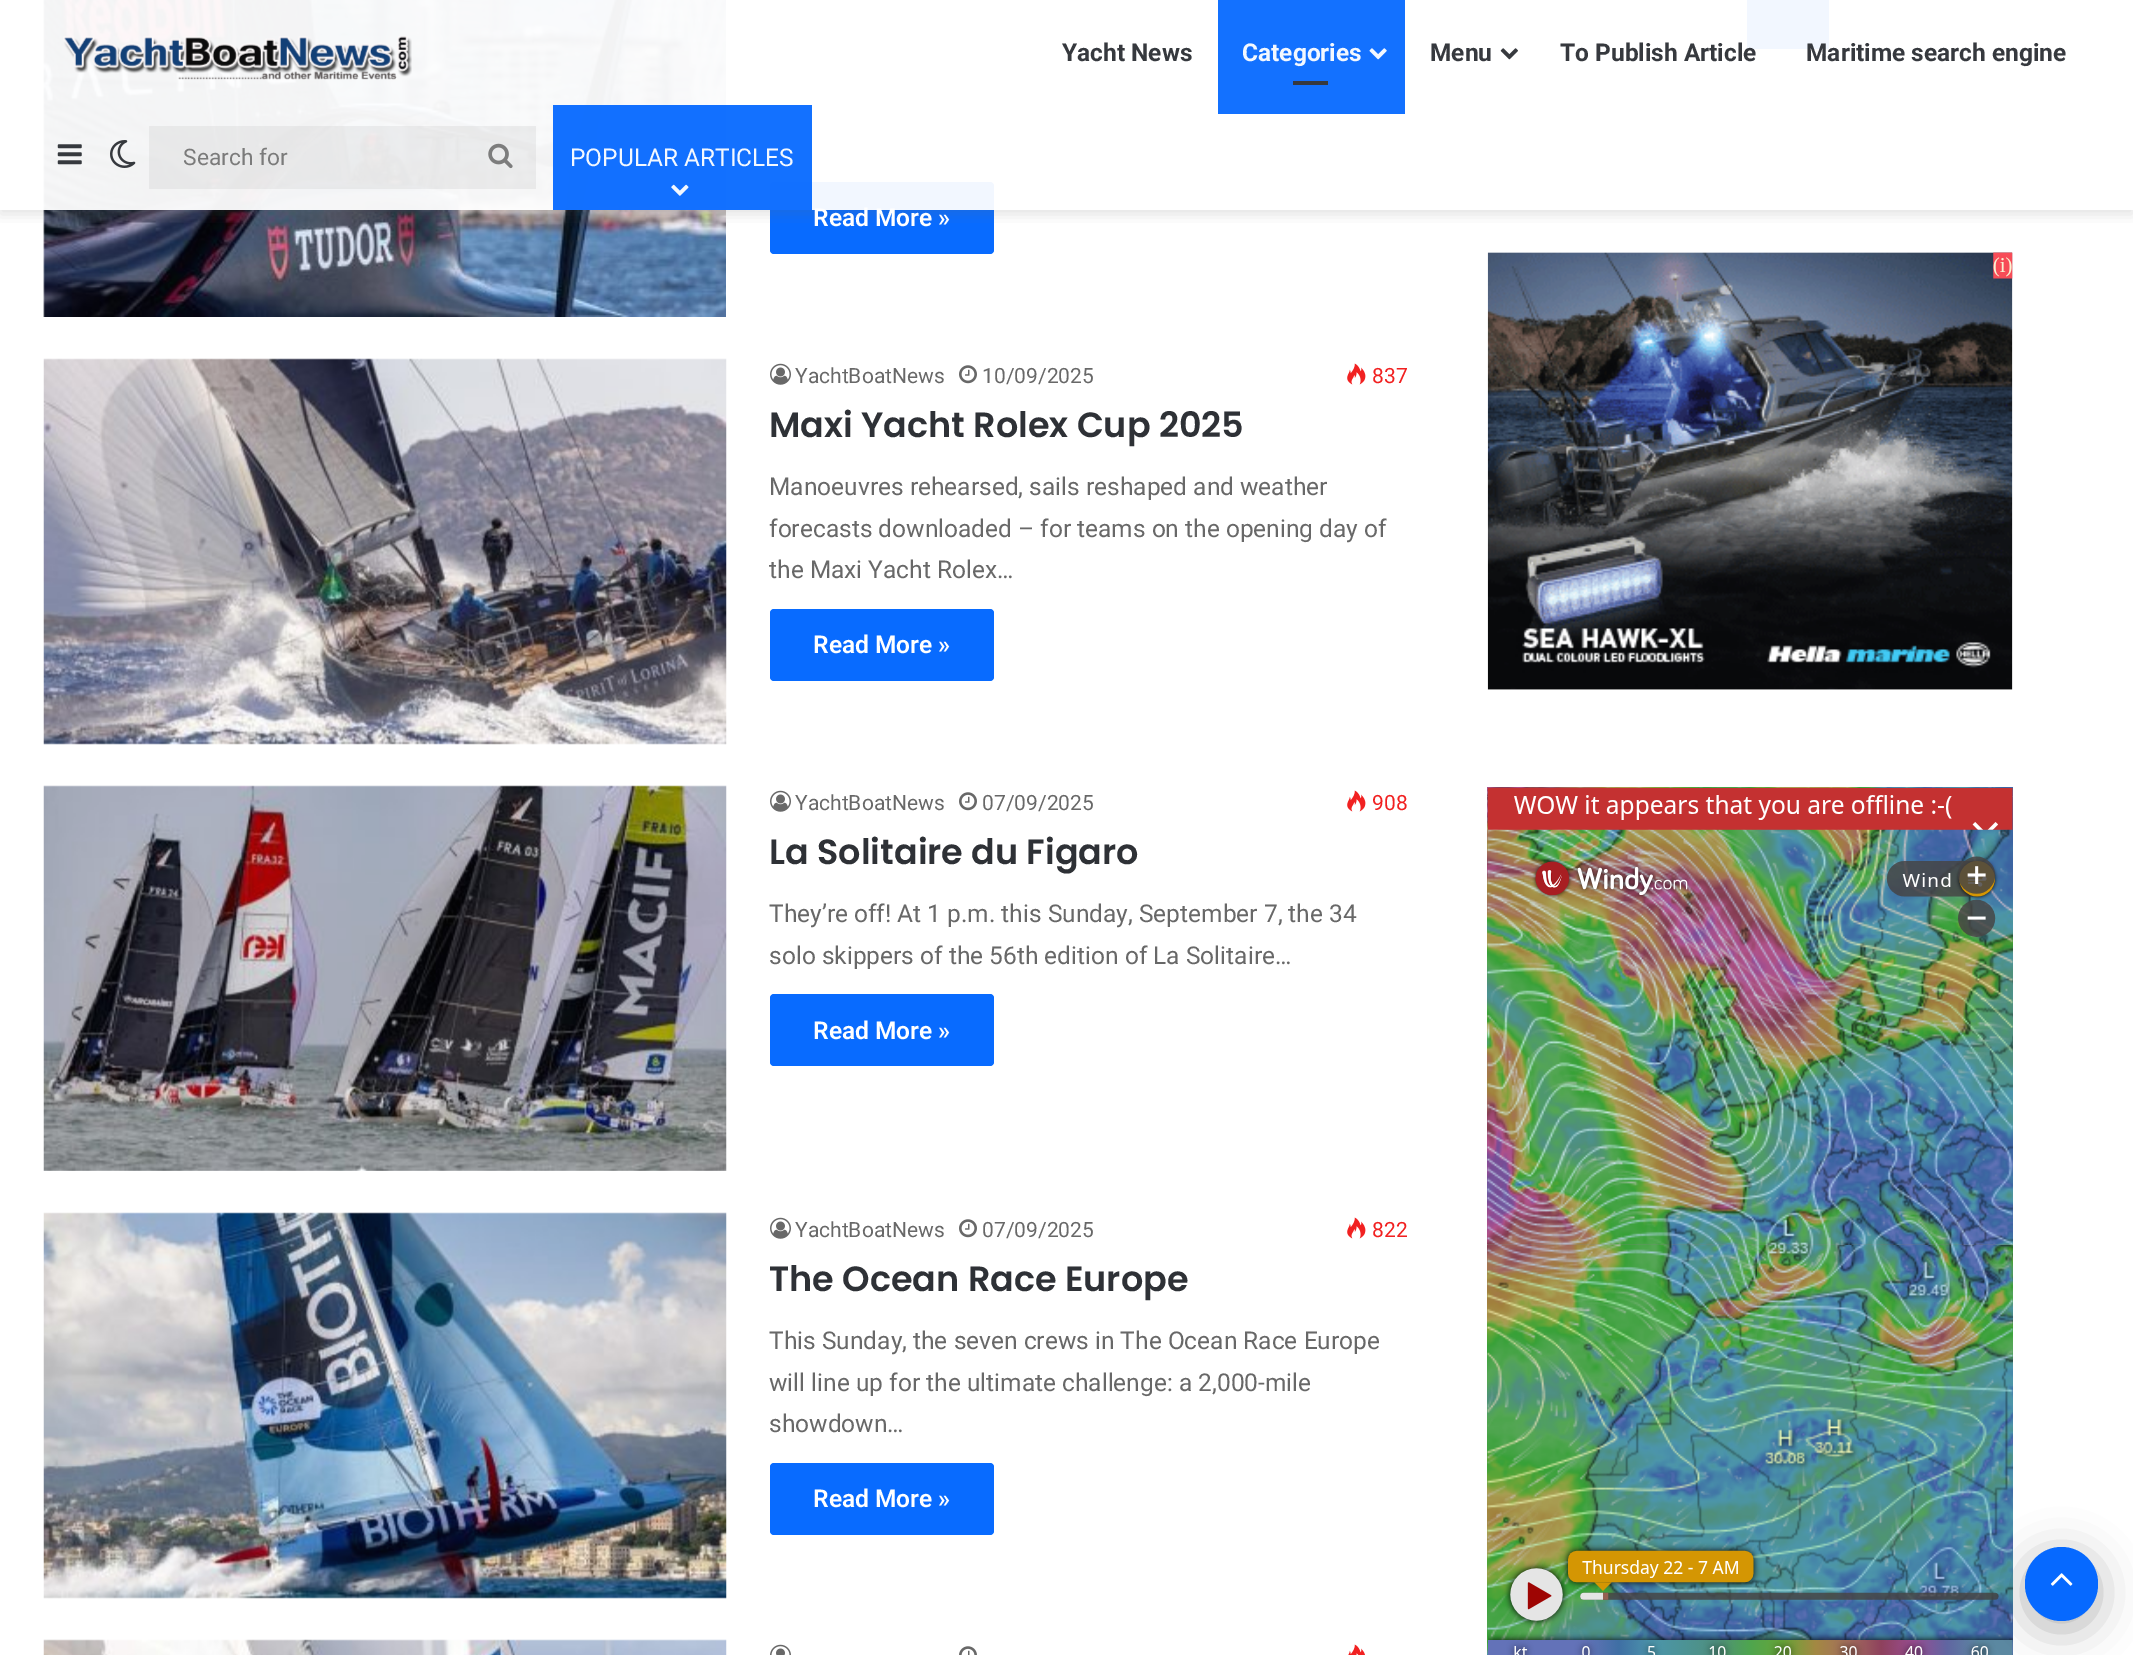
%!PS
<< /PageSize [2133 1655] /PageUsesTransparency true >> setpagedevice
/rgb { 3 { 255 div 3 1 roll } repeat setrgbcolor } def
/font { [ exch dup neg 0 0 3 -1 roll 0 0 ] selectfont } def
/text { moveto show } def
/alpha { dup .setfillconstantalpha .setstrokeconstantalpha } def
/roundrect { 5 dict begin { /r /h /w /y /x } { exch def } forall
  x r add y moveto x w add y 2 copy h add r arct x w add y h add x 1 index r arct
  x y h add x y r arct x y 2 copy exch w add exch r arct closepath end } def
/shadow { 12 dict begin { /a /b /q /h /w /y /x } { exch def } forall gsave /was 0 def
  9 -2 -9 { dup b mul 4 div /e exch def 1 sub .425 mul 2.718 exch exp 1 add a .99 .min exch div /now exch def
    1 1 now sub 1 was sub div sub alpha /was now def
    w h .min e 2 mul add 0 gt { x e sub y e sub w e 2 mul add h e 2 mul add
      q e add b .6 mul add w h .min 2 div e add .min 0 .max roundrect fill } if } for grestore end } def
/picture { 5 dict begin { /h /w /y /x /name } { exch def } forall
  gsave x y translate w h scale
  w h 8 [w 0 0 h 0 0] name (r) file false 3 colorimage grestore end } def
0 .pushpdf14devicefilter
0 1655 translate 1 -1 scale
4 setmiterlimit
255 255 255 rgb
0 0 2133 1655 rectfill
(img_08.rgb) 43 0 683 317 picture
8 107 255 rgb
770 182 224 72 4 roundrect fill
1747 0 82 49 rectfill
gsave
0 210 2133 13 rectclip
99 99 99 rgb
0 4 2133 210 0 7 0.2 shadow
grestore
(img_09.rgb) 43 358 684 387 picture
(img_10.rgb) 770 363 21 22 picture
(img_11.rgb) 959 365 18 19 picture
(img_12.rgb) 1347 363 19 22 picture
770 609 224 72 4 roundrect fill
(img_13.rgb) 43 785 684 386 picture
(img_10.rgb) 770 790 21 22 picture
(img_11.rgb) 959 792 18 19 picture
(img_12.rgb) 1347 790 19 22 picture
770 994 224 72 4 roundrect fill
(img_14.rgb) 43 1212 684 387 picture
(img_10.rgb) 770 1217 21 22 picture
(img_11.rgb) 959 1219 18 19 picture
(img_12.rgb) 1347 1217 19 22 picture
770 1463 224 72 4 roundrect fill
(img_15.rgb) 43 1639 684 16 picture
(img_16.rgb) 770 1644 21 11 picture
(img_17.rgb) 959 1646 18 9 picture
(img_18.rgb) 1348 1644 17 11 picture
(img_19.rgb) 1487 252 526 438 picture
(img_20.rgb) 1487 787 526 868 picture
0 0 0 rgb
2025 1556 73 73 36.5 22 0.3 shadow
6 105 255 rgb
2025 1547 73 74 36.5 roundrect fill
(img_21.rgb) 2050 1573 23 13 picture
/Roboto-SemiBold 24.5 font
255 255 255 rgb
(Read More ») 813 226 text
0.95 alpha
43 0 1786 210 rectfill
6 105 255 rgb
553 105 259 105 rectfill
1 alpha
(img_07.rgb) 671 184 18 12 picture
/Roboto-Regular 24.5 font
243 248 255 rgb
(POPULAR ARTICLES) 570 166 text
0.05 alpha
0 0 0 rgb
149 126 387 63 rectfill
1 alpha
(img_06.rgb) 488 143 25 26 picture
/Roboto-Regular 22.75 font
123 123 123 rgb
(Search for) 183 165 text
(img_05.rgb) 110 140 26 28 picture
(img_04.rgb) 57 144 25 21 picture
/Roboto-Bold 24.5 font
54 57 62 rgb
(Maritime search engine) 1806 61 text
(To Publish Article) 1560 61 text
(img_03.rgb) 1500 48 18 12 picture
(Menu) 1430 61 text
0.95 alpha
6 105 255 rgb
1218 0 187 105 rectfill
1 alpha
55 57 62 rgb
1293 81 35 4 rectfill
(img_02.rgb) 1369 48 18 12 picture
243 248 255 rgb
(Categories) 1242 61 text
54 57 62 rgb
(Yacht News) 1062 61 text
(img_01.rgb) 63 36 349 44 picture
0.95 alpha
6 105 255 rgb
1218 105 187 9 rectfill
/Roboto-Regular 21 font
1 alpha
104 104 104 rgb
(YachtBoatNews) 795 383 text
(10/09/2025) 982 383 text
241 32 32 rgb
(837) 1372 383 text
/Poppins-SemiBold 35 font
46 49 54 rgb
(Maxi Yacht Rolex Cup 2025) 769 437 text
/Roboto-Regular 24.5 font
104 104 104 rgb
(Manoeuvres rehearsed, sails reshaped and weather) 769 495 text
(forecasts downloaded – for teams on the opening day of) 769 537 text
(the Maxi Yacht Rolex…) 769 578 text
/Roboto-SemiBold 24.5 font
255 255 255 rgb
(Read More ») 813 653 text
/Roboto-Regular 21 font
104 104 104 rgb
(YachtBoatNews) 795 810 text
(07/09/2025) 982 810 text
241 32 32 rgb
(908) 1372 810 text
/Poppins-SemiBold 35 font
46 49 54 rgb
(La Solitaire du Figaro) 769 864 text
/Roboto-Regular 24.5 font
104 104 104 rgb
(They’re off! At 1 p.m. this Sunday, September 7, the 34) 769 922 text
(solo skippers of the 56th edition of La Solitaire…) 769 964 text
/Roboto-SemiBold 24.5 font
255 255 255 rgb
(Read More ») 813 1039 text
/Roboto-Regular 21 font
104 104 104 rgb
(YachtBoatNews) 795 1237 text
(07/09/2025) 982 1237 text
241 32 32 rgb
(822) 1372 1237 text
/Poppins-SemiBold 35 font
46 49 54 rgb
(The Ocean Race Europe) 769 1291 text
/Roboto-Regular 24.5 font
104 104 104 rgb
(This Sunday, the seven crews in The Ocean Race Europe) 769 1349 text
(will line up for the ultimate challenge: a 2,000-mile) 769 1391 text
(showdown…) 769 1432 text
/Roboto-SemiBold 24.5 font
255 255 255 rgb
(Read More ») 813 1507 text
.poppdf14devicefilter showpage
